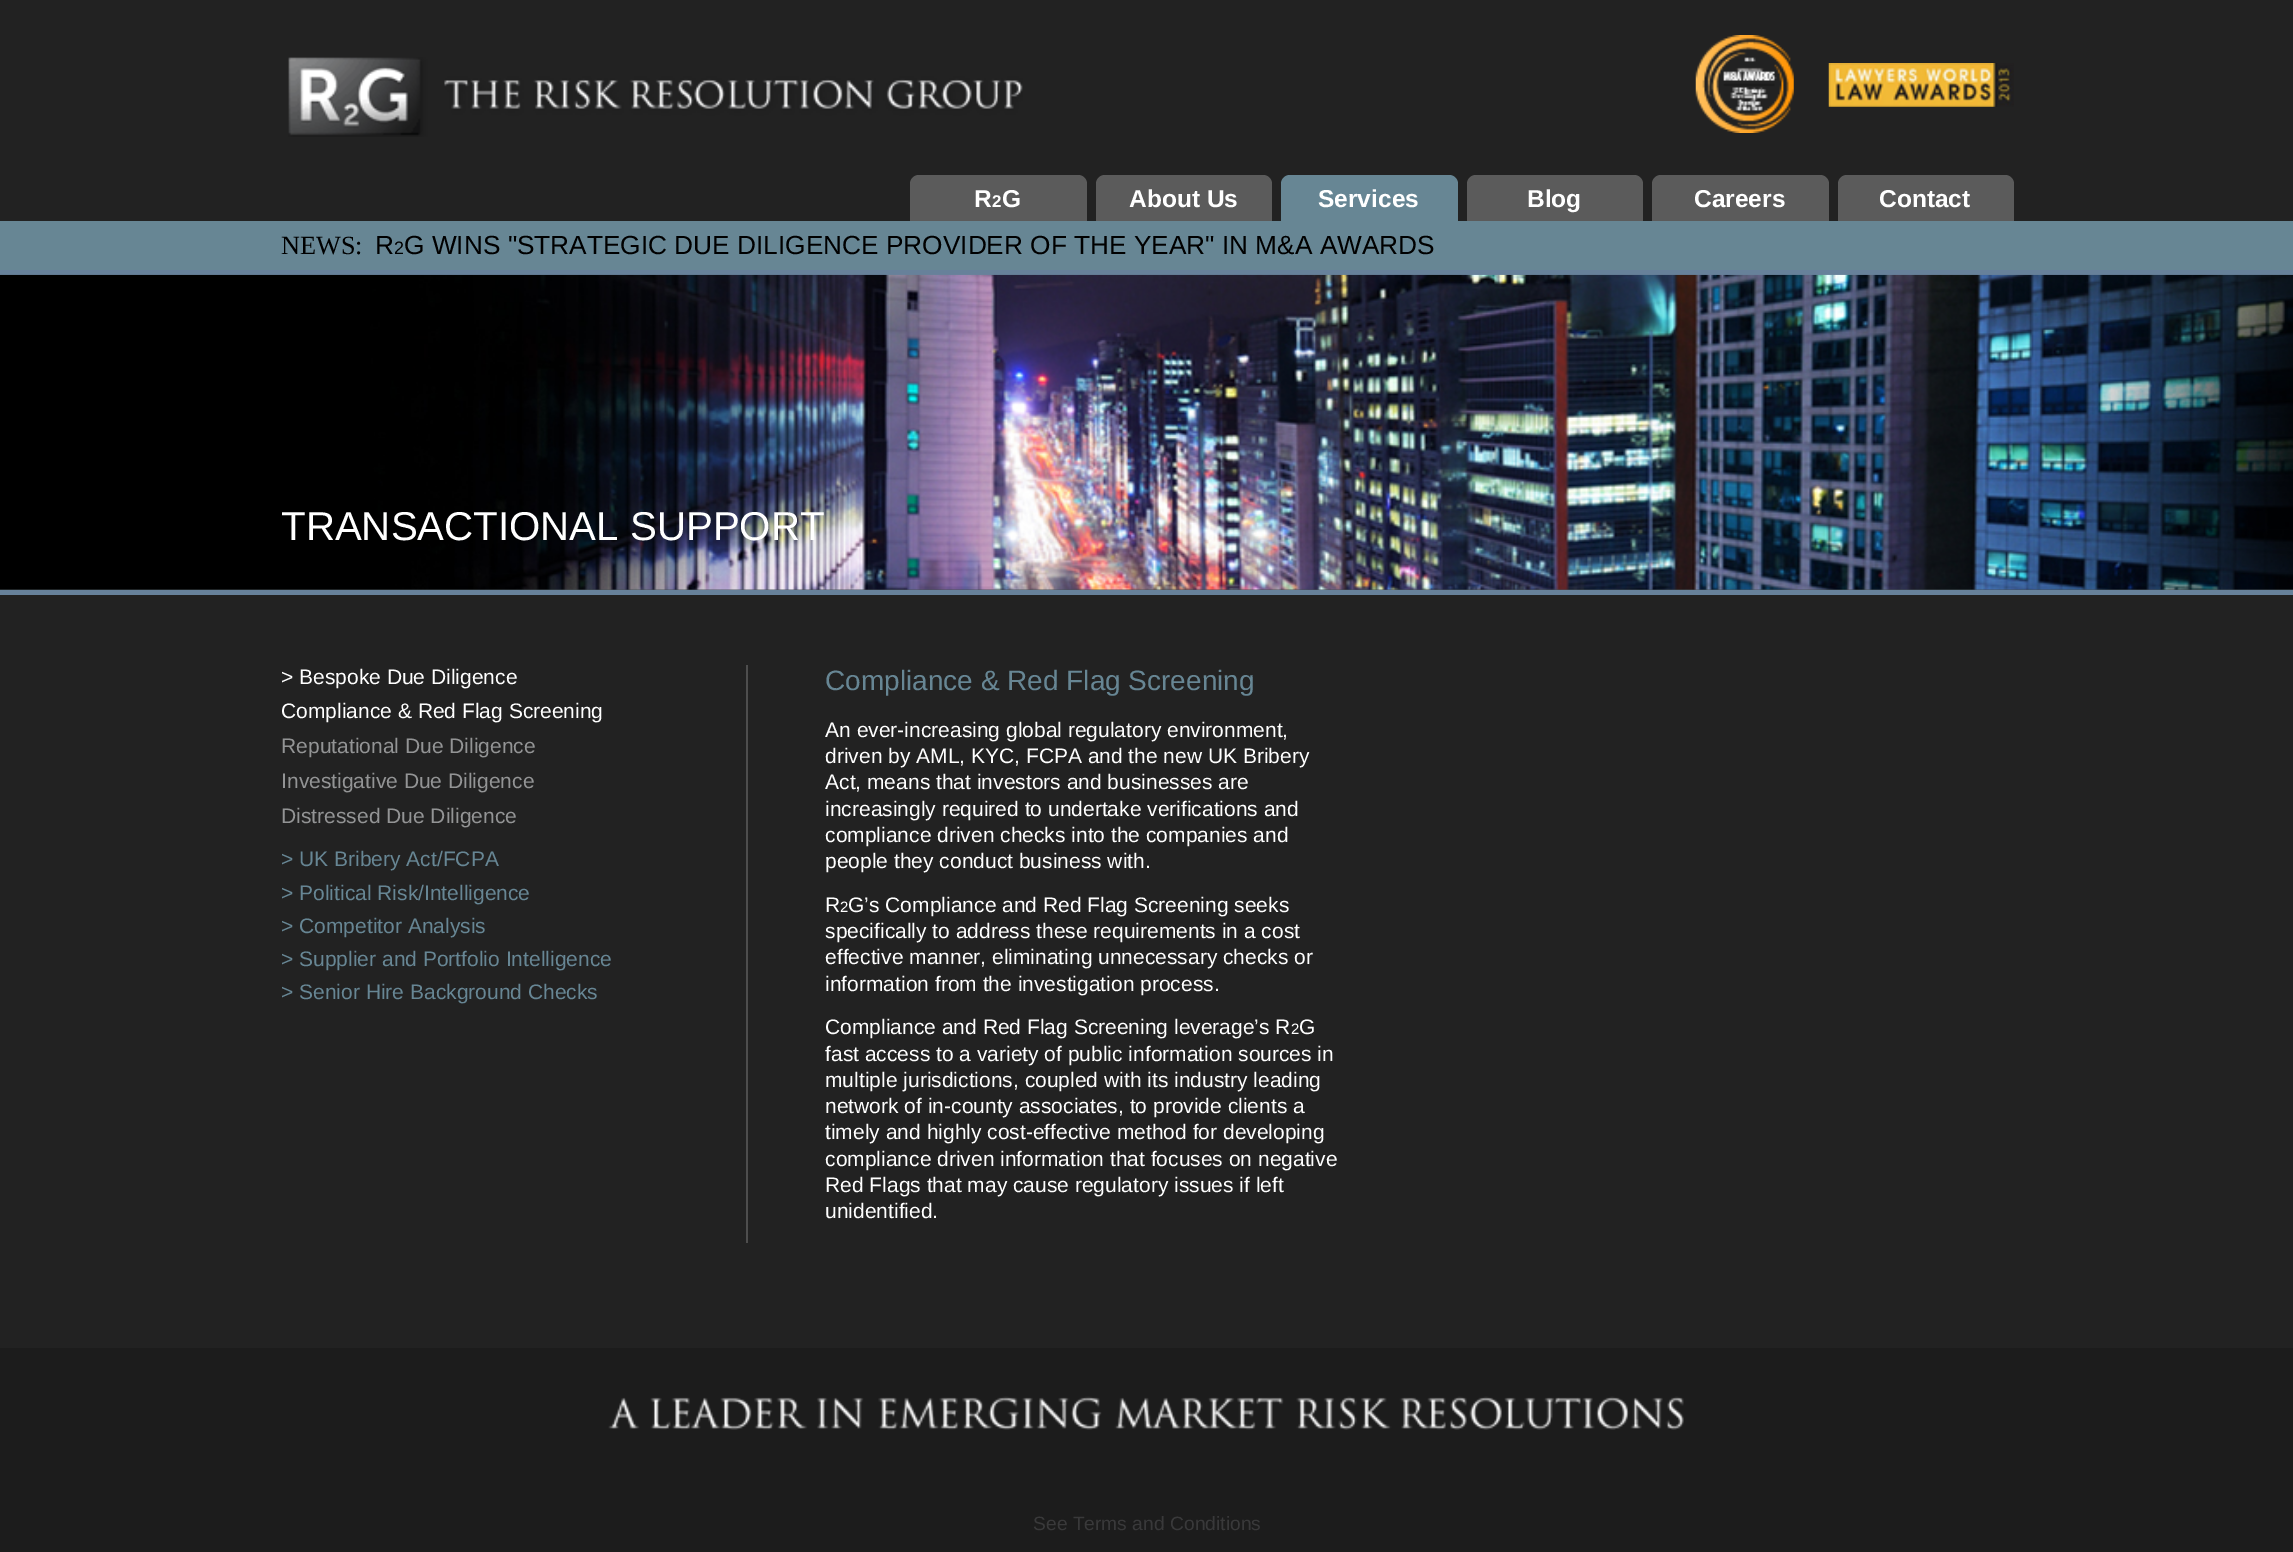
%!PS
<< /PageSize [2293 1552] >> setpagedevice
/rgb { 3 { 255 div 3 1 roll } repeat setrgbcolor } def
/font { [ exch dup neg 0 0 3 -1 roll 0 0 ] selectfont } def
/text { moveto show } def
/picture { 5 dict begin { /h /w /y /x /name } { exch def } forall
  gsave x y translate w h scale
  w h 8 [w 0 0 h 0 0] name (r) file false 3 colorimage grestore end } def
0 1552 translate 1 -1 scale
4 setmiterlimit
34 34 34 rgb
0 0 2293 1552 rectfill
(img_01.rgb) 288 57 735 80 picture
(img_02.rgb) 1695 35 99 98 picture
(img_03.rgb) 1828 63 186 44 picture
91 91 91 rgb
919 175 moveto 159 0 rlineto 5 0 9 4 9 9 rcurveto 0 37 rlineto -177 0 rlineto 0 -37 rlineto 0 -5 4 -9 9 -9 rcurveto closepath fill
1105 175 moveto 158 0 rlineto 5 0 9 4 9 9 rcurveto 0 37 rlineto -176 0 rlineto 0 -37 rlineto 0 -5 4 -9 9 -9 rcurveto closepath fill
103 134 148 rgb
1290 175 moveto 159 0 rlineto 5 0 9 4 9 9 rcurveto 0 37 rlineto -177 0 rlineto 0 -37 rlineto 0 -5 4 -9 9 -9 rcurveto closepath fill
91 91 91 rgb
1476 175 moveto 158 0 rlineto 5 0 9 4 9 9 rcurveto 0 37 rlineto -176 0 rlineto 0 -37 rlineto 0 -5 4 -9 9 -9 rcurveto closepath fill
1661 175 moveto 159 0 rlineto 5 0 9 4 9 9 rcurveto 0 37 rlineto -177 0 rlineto 0 -37 rlineto 0 -5 4 -9 9 -9 rcurveto closepath fill
1847 175 moveto 158 0 rlineto 5 0 9 4 9 9 rcurveto 0 37 rlineto -176 0 rlineto 0 -37 rlineto 0 -5 4 -9 9 -9 rcurveto closepath fill
103 134 148 rgb
0 221 2293 49 rectfill
103 129 154 rgb
0 270 2293 5 rectfill
0 590 2293 5 rectfill
71 82 88 rgb
0 589 2293 1 rectfill
(img_04.rgb) 0 274 2293 316 picture
78 78 78 rgb
746 665 2 578 rectfill
28 28 28 rgb
0 1348 2293 204 rectfill
(img_05.rgb) 608 1396 1076 34 picture
/LiberationSans-Bold 24.5 font
255 255 255 rgb
(R) 974 207 text
/LiberationSans-Bold 17 font
(2) 992 207 text
/LiberationSans-Bold 24.5 font
(G) 1002 207 text
(About Us) 1129 207 text
(Services) 1318 207 text
(Blog) 1527 207 text
(Careers) 1694 207 text
(Contact) 1879 207 text
/LiberationSerif-Regular 26.25 font
0 0 0 rgb
(NEWS:) 281 254 text
/LiberationSans-Regular 26.25 font
(R) 375 254 text
/LiberationSans-Regular 18 font
(2) 394 254 text
/LiberationSans-Regular 26.25 font
(G WINS "STRATEGIC DUE DILIGENCE PROVIDER OF THE YEAR" IN M&A AWARDS) 404 254 text
/LiberationSans-Regular 40.25 font
255 255 255 rgb
(TRANSACTIONAL SUPPORT) 281 540 text
/LiberationSans-Regular 21 font
(> Bespoke Due Diligence) 281 684 text
(Compliance & Red Flag Screening) 281 718 text
147 148 149 rgb
(Reputational Due Diligence) 281 753 text
(Investigative Due Diligence) 281 788 text
(Distressed Due Diligence) 281 823 text
103 134 148 rgb
(> UK Bribery Act/FCPA) 281 866 text
(> Political Risk/Intelligence) 281 900 text
(> Competitor Analysis) 281 933 text
(> Supplier and Portfolio Intelligence) 281 966 text
(> Senior Hire Background Checks) 281 999 text
/LiberationSans-Regular 28 font
(Compliance & Red Flag Screening) 825 690 text
/LiberationSans-Regular 21 font
255 255 255 rgb
(An ever-increasing global regulatory environment,) 825 737 text
(driven by AML, KYC, FCPA and the new UK Bribery) 825 763 text
(Act, means that investors and businesses are) 825 789 text
(increasingly required to undertake verifications and) 825 816 text
(compliance driven checks into the companies and) 825 842 text
(people they conduct business with.) 825 868 text
(R) 825 912 text
/LiberationSans-Regular 15 font
(2) 840 912 text
/LiberationSans-Regular 21 font
(G’s Compliance and Red Flag Screening seeks) 848 912 text
(specifically to address these requirements in a cost) 825 938 text
(effective manner, eliminating unnecessary checks or) 825 964 text
(information from the investigation process.) 825 991 text
(Compliance and Red Flag Screening leverage’s R) 825 1034 text
/LiberationSans-Regular 15 font
(2) 1291 1034 text
/LiberationSans-Regular 21 font
(G) 1299 1034 text
(fast access to a variety of public information sources in) 825 1061 text
(multiple jurisdictions, coupled with its industry leading) 825 1087 text
(network of in-county associates, to provide clients a) 825 1113 text
(timely and highly cost-effective method for developing) 825 1139 text
(compliance driven information that focuses on negative) 825 1166 text
(Red Flags that may cause regulatory issues if left) 825 1192 text
(unidentified.) 825 1218 text
/LiberationSans-Regular 19.25 font
57 57 58 rgb
(See Terms and Conditions) 1033 1530 text
showpage
